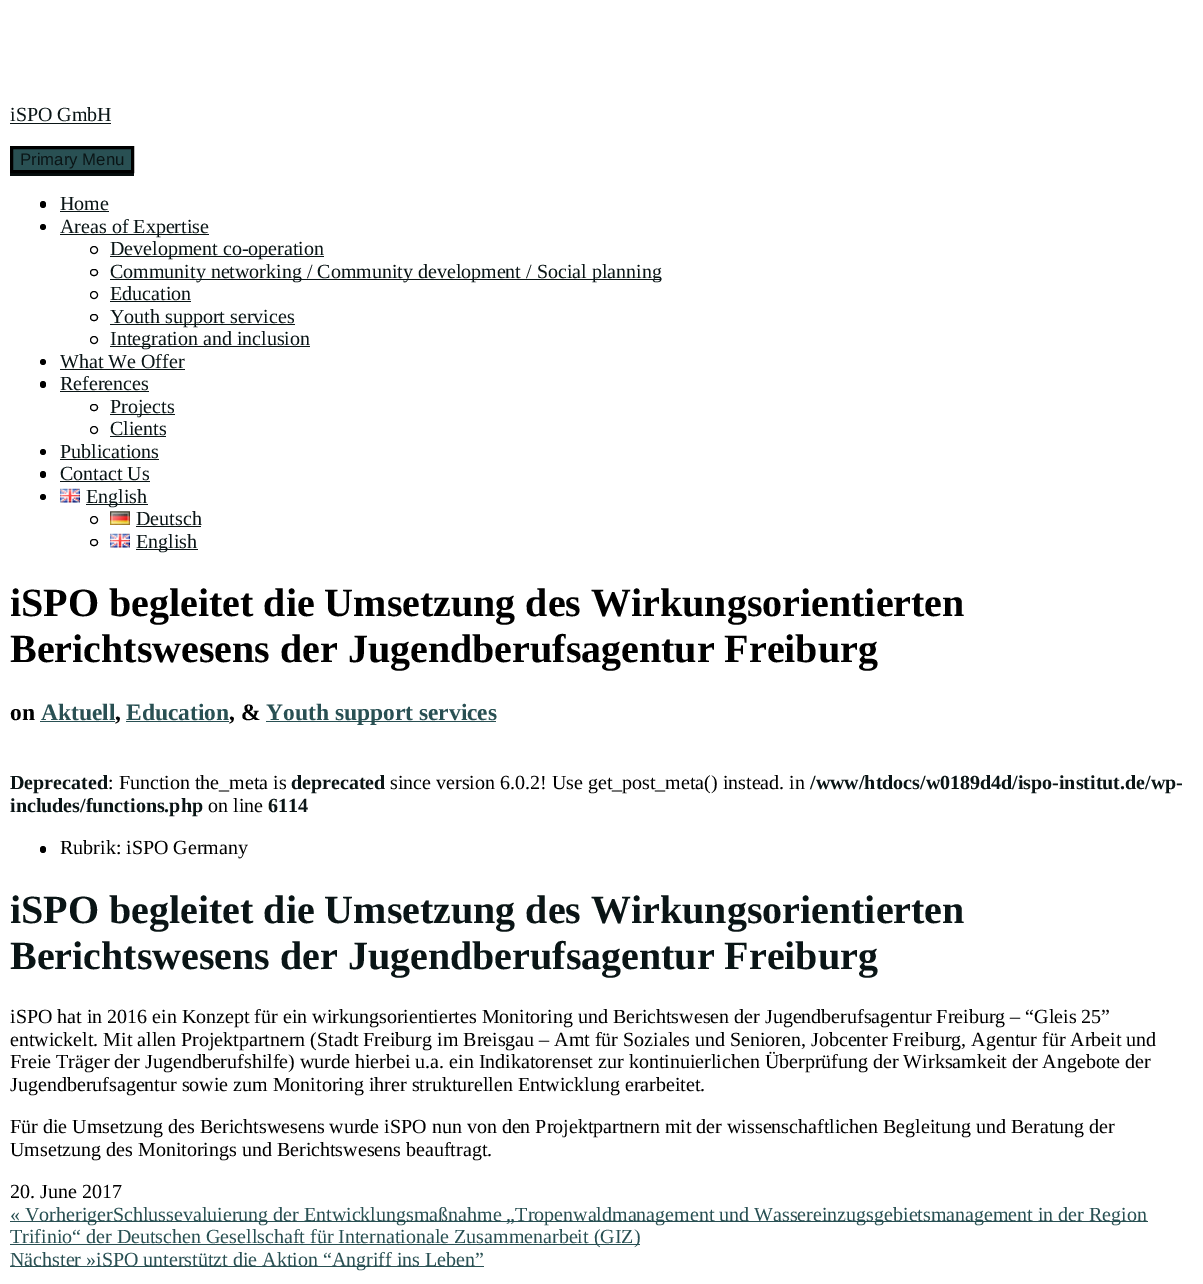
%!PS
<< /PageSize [1203 1284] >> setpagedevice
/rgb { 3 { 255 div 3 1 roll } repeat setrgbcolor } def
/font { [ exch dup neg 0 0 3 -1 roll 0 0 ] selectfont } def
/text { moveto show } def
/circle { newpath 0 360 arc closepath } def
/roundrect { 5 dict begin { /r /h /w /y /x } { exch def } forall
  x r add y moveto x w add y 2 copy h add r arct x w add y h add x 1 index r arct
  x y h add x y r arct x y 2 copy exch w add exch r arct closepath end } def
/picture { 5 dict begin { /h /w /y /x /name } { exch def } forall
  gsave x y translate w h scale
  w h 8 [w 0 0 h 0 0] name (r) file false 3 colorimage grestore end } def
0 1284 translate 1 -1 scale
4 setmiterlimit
255 255 255 rgb
0 0 1203 1284 rectfill
10 21 22 rgb
10 123 101 1 rectfill
7 14 14 rgb
10 172 moveto 0 4 rlineto 124 0 rlineto 0 -26 rlineto 0 22 rlineto closepath fill
41 80 83 rgb
11.5 147.5 moveto 121 0 rlineto 0 24 rlineto -121 0 rlineto closepath gsave fill grestore
0 0 0 rgb
3 setlinewidth
stroke
40 201 6 7 3 roundrect fill
10 21 22 rgb
60 211 49 1 rectfill
0 0 0 rgb
43 227 3 circle fill
10 21 22 rgb
60 234 149 1 rectfill
0 0 0 rgb
1 setlinewidth
94 250 3.5 circle stroke
10 21 22 rgb
110 256 214 1 rectfill
0 0 0 rgb
90.5 269.5 7 6 3 roundrect stroke
10 21 22 rgb
110 279 551 1 rectfill
0 0 0 rgb
94 295 3.5 circle stroke
10 21 22 rgb
110 301 81 1 rectfill
0 0 0 rgb
90.5 314.5 7 6 3 roundrect stroke
10 21 22 rgb
110 324 185 1 rectfill
0 0 0 rgb
94 340 3.5 circle stroke
10 21 22 rgb
110 346 200 1 rectfill
0 0 0 rgb
43 362 3 circle fill
10 21 22 rgb
60 369 125 1 rectfill
0 0 0 rgb
40 381 6 7 3 roundrect fill
10 21 22 rgb
60 391 89 1 rectfill
0 0 0 rgb
90.5 404.5 7 6 3 roundrect stroke
10 21 22 rgb
110 414 65 1 rectfill
0 0 0 rgb
94 430 3.5 circle stroke
10 21 22 rgb
110 436 56 1 rectfill
0 0 0 rgb
43 452 3 circle fill
10 21 22 rgb
60 459 99 1 rectfill
0 0 0 rgb
40 471 6 7 3 roundrect fill
10 21 22 rgb
60 481 90 1 rectfill
0 0 0 rgb
43 497 3 circle fill
(img_01.rgb) 60 488 20 15 picture
10 21 22 rgb
86 504 62 1 rectfill
0 0 0 rgb
94 520 3.5 circle stroke
(img_02.rgb) 110 511 20 14 picture
10 21 22 rgb
136 526 65 1 rectfill
0 0 0 rgb
90.5 539.5 7 6 3 roundrect stroke
(img_01.rgb) 110 533 20 15 picture
10 21 22 rgb
136 549 62 1 rectfill
41 80 83 rgb
40 721 75 1 rectfill
126 721 103 1 rectfill
266 721 230 1 rectfill
0 0 0 rgb
40 846 6 7 3 roundrect fill
41 80 83 rgb
10 1221 1138 1 rectfill
10 1244 630 1 rectfill
10 1266 474 1 rectfill
/LiberationSerif-Regular 20 font
10 21 22 rgb
(iSPO GmbH) 10 121 text
/LiberationSans-Regular 16.75 font
(Primary Menu) 20 165 text
/LiberationSerif-Regular 20 font
(Home) 60 210 text
(Areas of Expertise) 60 233 text
(Development co-operation) 110 255 text
(Community networking / Community development / Social planning) 110 278 text
(Education) 110 300 text
(Youth support services) 110 323 text
(Integration and inclusion) 110 345 text
(What We Offer) 60 368 text
(References) 60 390 text
(Projects) 110 413 text
(Clients) 110 435 text
(Publications) 60 458 text
(Contact Us) 60 480 text
(English) 86 503 text
(Deutsch) 136 525 text
(English) 136 548 text
/LiberationSerif-Bold 40 font
0 0 0 rgb
(iSPO begleitet die Umsetzung des Wirkungsorientierten) 10 616 text
(Berichtswesens der Jugendberufsagentur Freiburg) 10 662 text
/LiberationSerif-Bold 23.5 font
(on) 10 720 text
41 80 83 rgb
(Aktuell) 41 720 text
0 0 0 rgb
(,) 115 720 text
41 80 83 rgb
(Education) 126 720 text
0 0 0 rgb
(, &) 229 720 text
41 80 83 rgb
(Youth support services) 266 720 text
/LiberationSerif-Bold 20 font
10 21 22 rgb
(Deprecated) 10 789 text
/LiberationSerif-Regular 20 font
0 0 0 rgb
(: Function the_meta is) 108 789 text
/LiberationSerif-Bold 20 font
10 21 22 rgb
(deprecated) 291 789 text
/LiberationSerif-Regular 20 font
0 0 0 rgb
(since version 6.0.2! Use get_post_meta\(\) instead. in) 390 789 text
/LiberationSerif-Bold 20 font
10 21 22 rgb
(/www/htdocs/w0189d4d/ispo-institut.de/wp-) 810 789 text
(includes/functions.php) 10 812 text
/LiberationSerif-Regular 20 font
0 0 0 rgb
(on line) 208 812 text
/LiberationSerif-Bold 20 font
10 21 22 rgb
(6114) 268 812 text
/LiberationSerif-Regular 20 font
0 0 0 rgb
(Rubrik: iSPO Germany) 60 854 text
/LiberationSerif-Bold 40 font
10 21 22 rgb
(iSPO begleitet die Umsetzung des Wirkungsorientierten) 10 923 text
(Berichtswesens der Jugendberufsagentur Freiburg) 10 969 text
/LiberationSerif-Regular 20 font
0 0 0 rgb
(iSPO hat in 2016 ein Konzept für ein wirkungsorientiertes Monitoring und Berichtswesen der Jugendberufsagentur Freiburg – “Gleis 25”) 10 1023 text
(entwickelt. Mit allen Projektpartnern \(Stadt Freiburg im Breisgau – Amt für Soziales und Senioren, Jobcenter Freiburg, Agentur für Arbeit und) 10 1046 text
(Freie Träger der Jugendberufshilfe\) wurde hierbei u.a. ein Indikatorenset zur kontinuierlichen Überprüfung der Wirksamkeit der Angebote der) 10 1068 text
(Jugendberufsagentur sowie zum Monitoring ihrer strukturellen Entwicklung erarbeitet.) 10 1091 text
(Für die Umsetzung des Berichtswesens wurde iSPO nun von den Projektpartnern mit der wissenschaftlichen Begleitung und Beratung der) 10 1133 text
(Umsetzung des Monitorings und Berichtswesens beauftragt.) 10 1156 text
(20. June 2017) 10 1198 text
41 80 83 rgb
(« VorherigerSchlussevaluierung der Entwicklungsmaßnahme „Tropenwaldmanagement und Wassereinzugsgebietsmanagement in der Region) 10 1221 text
(Trifinio“ der Deutschen Gesellschaft für Internationale Zusammenarbeit \(GIZ\)) 10 1243 text
(Nächster »iSPO unterstützt die Aktion “Angriff ins Leben”) 10 1266 text
showpage
